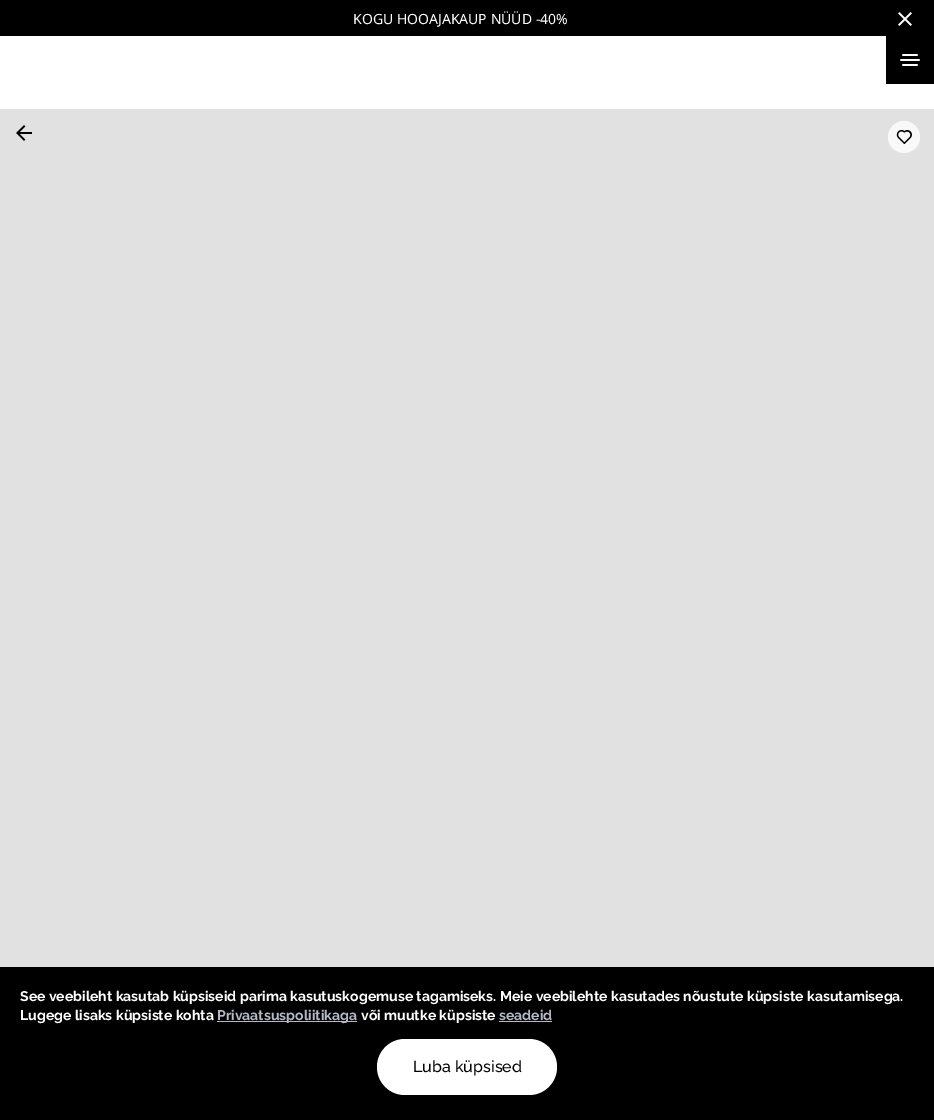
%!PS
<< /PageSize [934 1120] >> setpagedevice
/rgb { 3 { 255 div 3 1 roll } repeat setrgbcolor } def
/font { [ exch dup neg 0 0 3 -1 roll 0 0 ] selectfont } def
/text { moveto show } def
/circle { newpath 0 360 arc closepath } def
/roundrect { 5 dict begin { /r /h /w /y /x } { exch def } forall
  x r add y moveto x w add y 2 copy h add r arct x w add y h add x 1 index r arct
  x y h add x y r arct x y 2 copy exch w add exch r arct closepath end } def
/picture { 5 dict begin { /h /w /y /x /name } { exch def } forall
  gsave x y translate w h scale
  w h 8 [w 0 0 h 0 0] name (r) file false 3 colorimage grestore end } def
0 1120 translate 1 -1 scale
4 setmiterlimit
255 255 255 rgb
0 0 934 1120 rectfill
0 0 0 rgb
0 0 934 36 rectfill
(img_01.rgb) 898 12 14 14 picture
886 36 48 48 rectfill
(img_02.rgb) 900 54 20 12 picture
225 225 225 rgb
0 109 934 858 rectfill
(img_03.rgb) 16 125 16 16 picture
249 249 249 rgb
904 137 16 circle fill
(img_04.rgb) 896 130 16 14 picture
0 0 0 rgb
0 967 934 153 rectfill
180 184 199 rgb
217 1021 140 1 rectfill
499 1021 53 1 rectfill
255 255 255 rgb
377 1039 180 56 28 roundrect fill
/NotoSans-Regular 14 font
(KOGU HOOAJAKAUP NÜÜD -40%) 353 24 text
/Raleway-Bold 14 font
(See veebileht kasutab küpsiseid parima kasutuskogemuse tagamiseks. Meie veebilehte kasutades nõustute küpsiste kasutamisega.) 20 1001 text
(Lugege lisaks küpsiste kohta) 20 1020 text
180 184 199 rgb
(Privaatsuspoliitikaga) 217 1020 text
255 255 255 rgb
(või muutke küpsiste) 361 1020 text
180 184 199 rgb
(seadeid) 499 1020 text
/Raleway-Medium 16 font
0 0 0 rgb
(Luba küpsised) 413 1072 text
showpage
